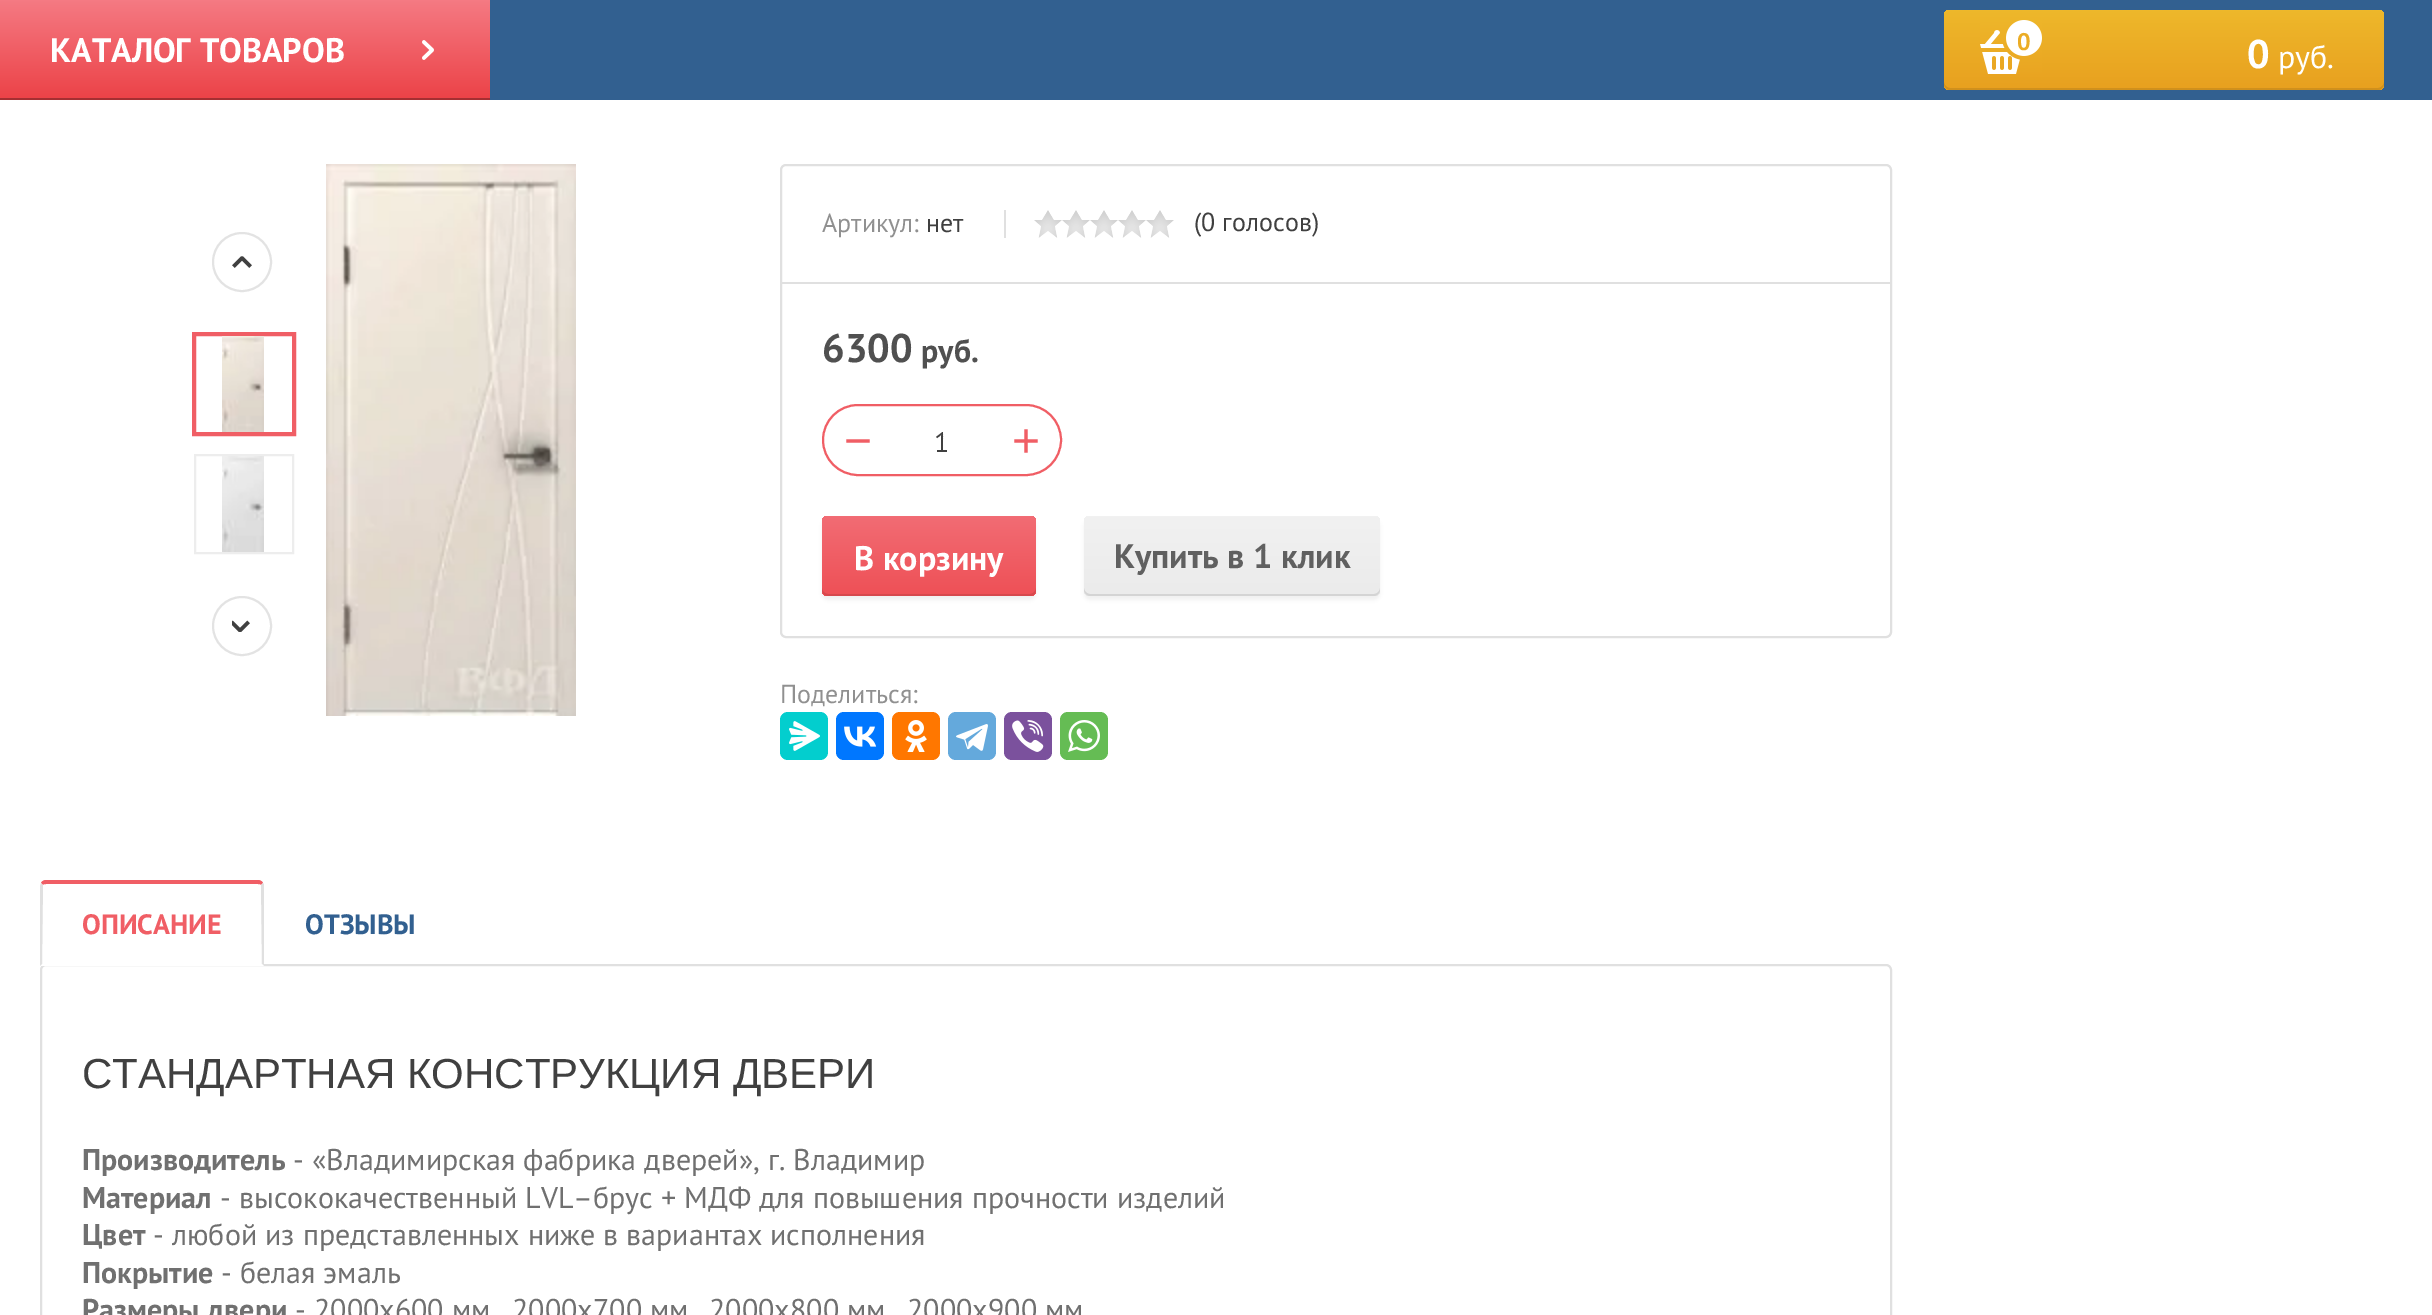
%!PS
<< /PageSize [2432 1315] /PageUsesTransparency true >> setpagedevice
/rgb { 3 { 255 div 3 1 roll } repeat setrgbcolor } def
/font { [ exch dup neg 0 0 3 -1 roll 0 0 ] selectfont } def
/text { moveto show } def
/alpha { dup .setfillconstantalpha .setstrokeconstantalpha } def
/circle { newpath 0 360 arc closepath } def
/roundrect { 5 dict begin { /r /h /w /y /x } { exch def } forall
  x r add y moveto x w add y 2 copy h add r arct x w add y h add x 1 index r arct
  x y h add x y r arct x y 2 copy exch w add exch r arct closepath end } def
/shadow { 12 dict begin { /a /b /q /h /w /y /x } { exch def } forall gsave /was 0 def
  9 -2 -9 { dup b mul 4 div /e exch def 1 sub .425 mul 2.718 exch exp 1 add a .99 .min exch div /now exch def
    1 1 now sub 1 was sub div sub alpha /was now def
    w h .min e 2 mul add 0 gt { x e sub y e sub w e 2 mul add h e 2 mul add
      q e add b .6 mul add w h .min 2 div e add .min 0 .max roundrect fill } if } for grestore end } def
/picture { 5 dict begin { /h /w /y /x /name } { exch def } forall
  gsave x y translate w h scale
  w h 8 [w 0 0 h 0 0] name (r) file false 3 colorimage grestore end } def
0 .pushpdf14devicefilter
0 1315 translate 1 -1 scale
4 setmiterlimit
255 255 255 rgb
0 0 2432 1315 rectfill
50 96 144 rgb
490 0 1942 100 rectfill
gsave 0 0 moveto 490 0 rlineto 0 98 rlineto -490 0 rlineto closepath clip newpath
<< /ShadingType 2 /ColorSpace /DeviceRGB /Coords [245 100 245 0] /Extend [true true] /Function << /FunctionType 2 /Domain [0 1] /C0 [0.925 0.259 0.278] /C1 [0.961 0.478 0.514] /N 1 >> >> shfill grestore
165 47 50 rgb
0 98 490 2 rectfill
(img_01.rgb) 422 40 12 20 picture
gsave 1944 10 440 80 6 roundrect clip newpath
<< /ShadingType 2 /ColorSpace /DeviceRGB /Coords [2164 90 2164 10] /Extend [true true] /Function << /FunctionType 2 /Domain [0 1] /C0 [0.91 0.627 0.122] /C1 [0.933 0.722 0.169] /N 1 >> >> shfill grestore
0.1 alpha
0 0 0 rgb
1944 82 moveto 0 2 rlineto 0 3 3 6 6 6 rcurveto 428 0 rlineto 3 0 6 -3 6 -6 rcurveto 0 -2 rlineto 0 3 -3 6 -6 6 rcurveto -428 0 rlineto -3 0 -6 -3 -6 -6 rcurveto closepath fill
1 alpha
(img_02.rgb) 1980 20 62 54 picture
227 227 227 rgb
2 setlinewidth
242 262 29 circle stroke
(img_03.rgb) 232 256 20 12 picture
242 626 29 circle stroke
(img_04.rgb) 232 620 18 12 picture
240 94 101 rgb
195 335 98 98 rectstroke
(img_05.rgb) 222 336 42 96 picture
193 333 102 102 rectstroke
237 237 237 rgb
195 455 98 98 rectstroke
(img_06.rgb) 222 456 42 96 picture
(img_07.rgb) 326 164 250 552 picture
224 224 224 rgb
781 165 1110 472 5 roundrect stroke
782 282 1108 2 rectfill
1004 210 2 28 rectfill
(img_08.rgb) 1034 210 140 28 picture
240 94 101 rgb
823 405 238 70 35 roundrect stroke
0 0 0 rgb
822 520 214 80 6 2 0.05 shadow
gsave 822 516 214 80 6 roundrect clip newpath
<< /ShadingType 2 /ColorSpace /DeviceRGB /Coords [929 596 929 516] /Extend [true true] /Function << /FunctionType 2 /Domain [0 1] /C0 [0.933 0.314 0.337] /C1 [0.949 0.424 0.455] /N 1 >> >> shfill grestore
0.1 alpha
822 588 moveto 0 2 rlineto 0 3 3 6 6 6 rcurveto 202 0 rlineto 3 0 6 -3 6 -6 rcurveto 0 -2 rlineto 0 3 -3 6 -6 6 rcurveto -202 0 rlineto -3 0 -6 -3 -6 -6 rcurveto closepath fill
1 alpha
1084 520 296 80 6 2 0.05 shadow
gsave 1084 516 296 80 6 roundrect clip newpath
<< /ShadingType 2 /ColorSpace /DeviceRGB /Coords [1232 596 1232 516] /Extend [true true] /Function << /FunctionType 2 /Domain [0 1] /C0 [0.922 0.922 0.922] /C1 [0.945 0.945 0.945] /N 1 >> >> shfill grestore
212 212 212 rgb
1084 588 moveto 0 2 rlineto 0 3 3 6 6 6 rcurveto 284 0 rlineto 3 0 6 -3 6 -6 rcurveto 0 -2 rlineto 0 3 -3 6 -6 6 rcurveto -284 0 rlineto -3 0 -6 -3 -6 -6 rcurveto closepath fill
3 206 206 rgb
780 712 48 48 8 roundrect fill
(img_09.rgb) 789 721 31 30 picture
0 119 255 rgb
836 712 48 48 8 roundrect fill
(img_10.rgb) 844 726 33 21 picture
255 119 0 rgb
892 712 48 48 8 roundrect fill
(img_11.rgb) 905 720 22 32 picture
100 169 220 rgb
948 712 48 48 8 roundrect fill
(img_12.rgb) 956 724 32 27 picture
123 81 157 rgb
1004 712 48 48 8 roundrect fill
(img_13.rgb) 1012 720 32 32 picture
101 188 84 rgb
1060 712 48 48 8 roundrect fill
(img_14.rgb) 1068 720 32 32 picture
240 94 101 rgb
46 880 moveto -2 0 -4 1 -5 3 rcurveto 2 2 rlineto 0 -1 2 -1 3 -1 rcurveto 212 0 rlineto 1 0 3 0 3 1 rcurveto 2 -2 rlineto -1 -2 -3 -3 -5 -3 rcurveto closepath fill
224 224 224 rgb
41 965 1850 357 5 roundrect stroke
264 966 moveto 0 -80 rlineto 0 -1 0 -2 -1 -3 rcurveto -2 2 rlineto 1 79 rlineto closepath fill
255 255 255 rgb
264 966 moveto -2 -2 rlineto -220 0 rlineto -2 2 rlineto closepath fill
224 224 224 rgb
40 966 moveto 2 -2 rlineto 1 -79 rlineto -2 -2 rlineto -1 3 rlineto closepath fill
/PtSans-Bold 34 font
255 255 255 rgb
(КАТАЛОГ ТОВАРОВ) 50 62 text
/PtSans-Bold 24 font
235 172 37 rgb
(0) 2017 50 text
/PtSans-Bold 40 font
255 255 255 rgb
(0) 2247 68 text
/PtSans-Regular 32 font
(руб.) 2278 68 text
/PtSans-Regular 26 font
144 144 144 rgb
(Артикул:) 822 232 text
64 64 64 rgb
(нет) 926 232 text
(\(0 голосов\)) 1194 231 text
/PtSans-Bold 40 font
80 80 80 rgb
(6300) 822 362 text
/PtSans-Bold 32 font
(руб.) 921 362 text
/LiberationSans-Regular 48 font
240 94 101 rgb
(−) 844 457 text
/PtSans-Regular 28 font
64 64 64 rgb
(1) 934 452 text
/LiberationSans-Regular 48 font
240 94 101 rgb
(+) 1012 457 text
/PtSans-Bold 34 font
255 255 255 rgb
(В корзину) 854 570 text
96 96 96 rgb
(Купить в 1 клик) 1114 568 text
/PtSans-Regular 26 font
144 144 144 rgb
(Поделиться:) 780 703 text
/PtSans-Bold 28 font
240 94 101 rgb
(ОПИСАНИЕ) 82 934 text
50 96 144 rgb
(ОТЗЫВЫ) 305 934 text
/LiberationSans-Regular 42 font
64 64 64 rgb
(СТАНДАРТНАЯ КОНСТРУКЦИЯ ДВЕРИ) 82 1088 text
/PtSans-Bold 30 font
112 112 112 rgb
(Производитель) 82 1170 text
/PtSans-Regular 30 font
(- «Владимирская фабрика дверей», г. Владимир) 293 1170 text
/PtSans-Bold 30 font
(Материал) 82 1208 text
/PtSans-Regular 30 font
(- высококачественный LVL–брус + МДФ для повышения прочности изделий) 220 1208 text
/PtSans-Bold 30 font
(Цвет) 82 1245 text
/PtSans-Regular 30 font
(- любой из представленных ниже в вариантах исполнения) 153 1245 text
/PtSans-Bold 30 font
(Покрытие) 82 1283 text
/PtSans-Regular 30 font
(- белая эмаль) 221 1283 text
/PtSans-Bold 30 font
(Размеры двери) 82 1320 text
/PtSans-Regular 30 font
(- 2000х600 мм) 295 1320 text
(2000х700 мм) 512 1320 text
(2000х800 мм) 709 1320 text
(2000х900 мм) 907 1320 text
.poppdf14devicefilter showpage
